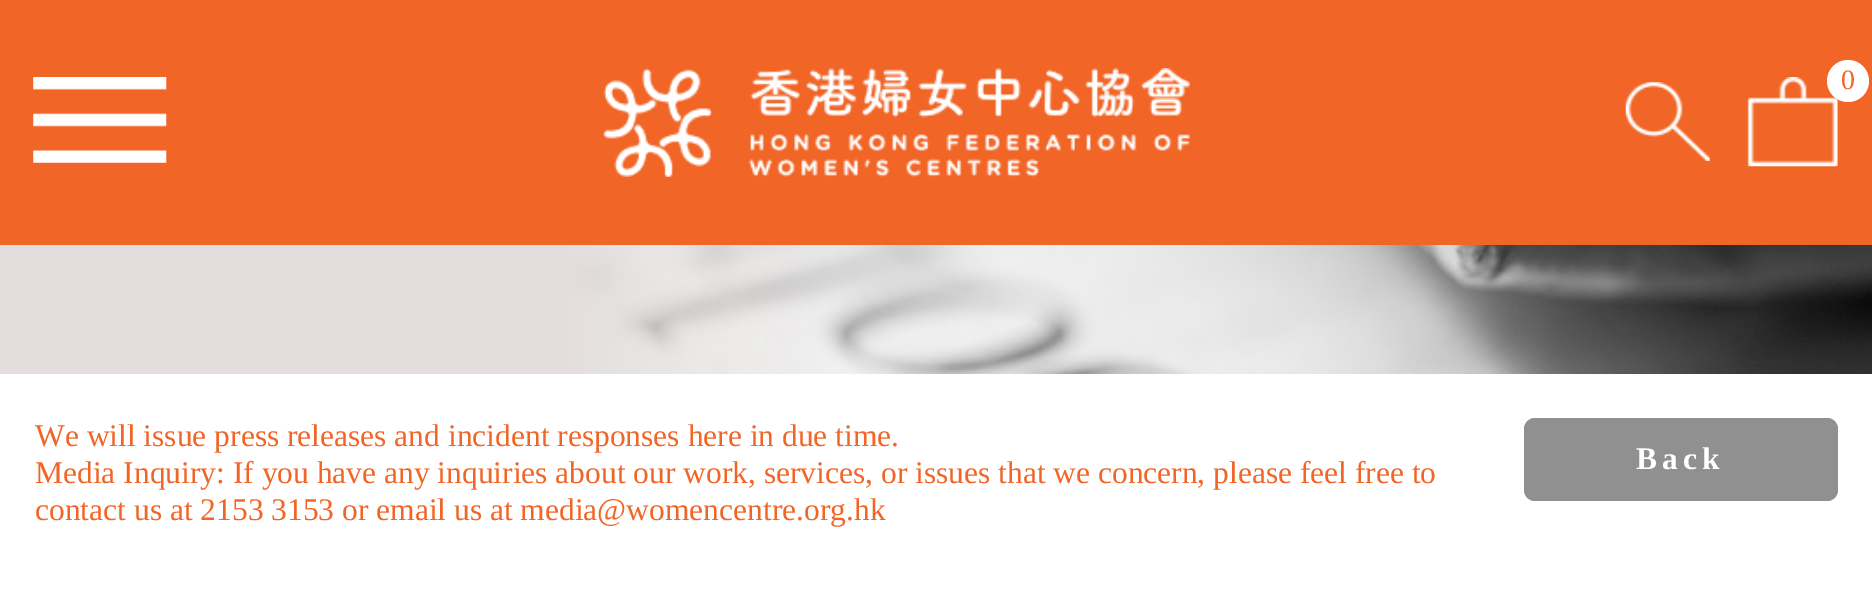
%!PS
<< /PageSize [1872 612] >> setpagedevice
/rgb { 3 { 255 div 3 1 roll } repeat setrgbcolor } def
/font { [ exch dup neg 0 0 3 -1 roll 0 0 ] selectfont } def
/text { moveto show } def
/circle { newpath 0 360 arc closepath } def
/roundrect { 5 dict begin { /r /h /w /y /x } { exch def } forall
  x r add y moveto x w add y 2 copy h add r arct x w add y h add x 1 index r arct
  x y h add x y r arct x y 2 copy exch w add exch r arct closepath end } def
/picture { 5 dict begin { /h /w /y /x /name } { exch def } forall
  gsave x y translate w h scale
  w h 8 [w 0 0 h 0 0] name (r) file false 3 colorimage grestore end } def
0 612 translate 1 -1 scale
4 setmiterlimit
255 255 255 rgb
0 0 1872 612 rectfill
241 101 39 rgb
0 0 1872 245 rectfill
(img_01.rgb) 33 77 134 86 picture
(img_02.rgb) 603 68 587 109 picture
(img_03.rgb) 1747 77 91 90 picture
255 255 255 rgb
1848 81 21 circle fill
(img_04.rgb) 1625 82 85 79 picture
(img_05.rgb) 0 245 1872 129 picture
144 144 144 rgb
1524 418 314 83 11 roundrect fill
/LiberationSerif-Regular 28 font
241 101 39 rgb
(0) 1841 89 text
/LiberationSerif-Regular 31.5 font
(We will issue press releases and incident responses here in due time.) 35 446 text
(Media Inquiry: If you have any inquiries about our work, services, or issues that we concern, please feel free to) 35 483 text
(contact us at 2153 3153 or email us at media@womencentre.org.hk) 35 520 text
/LiberationSerif-Bold 31.5 font
255 255 255 rgb
1636 469 moveto 5 0 (Back) ashow
showpage
